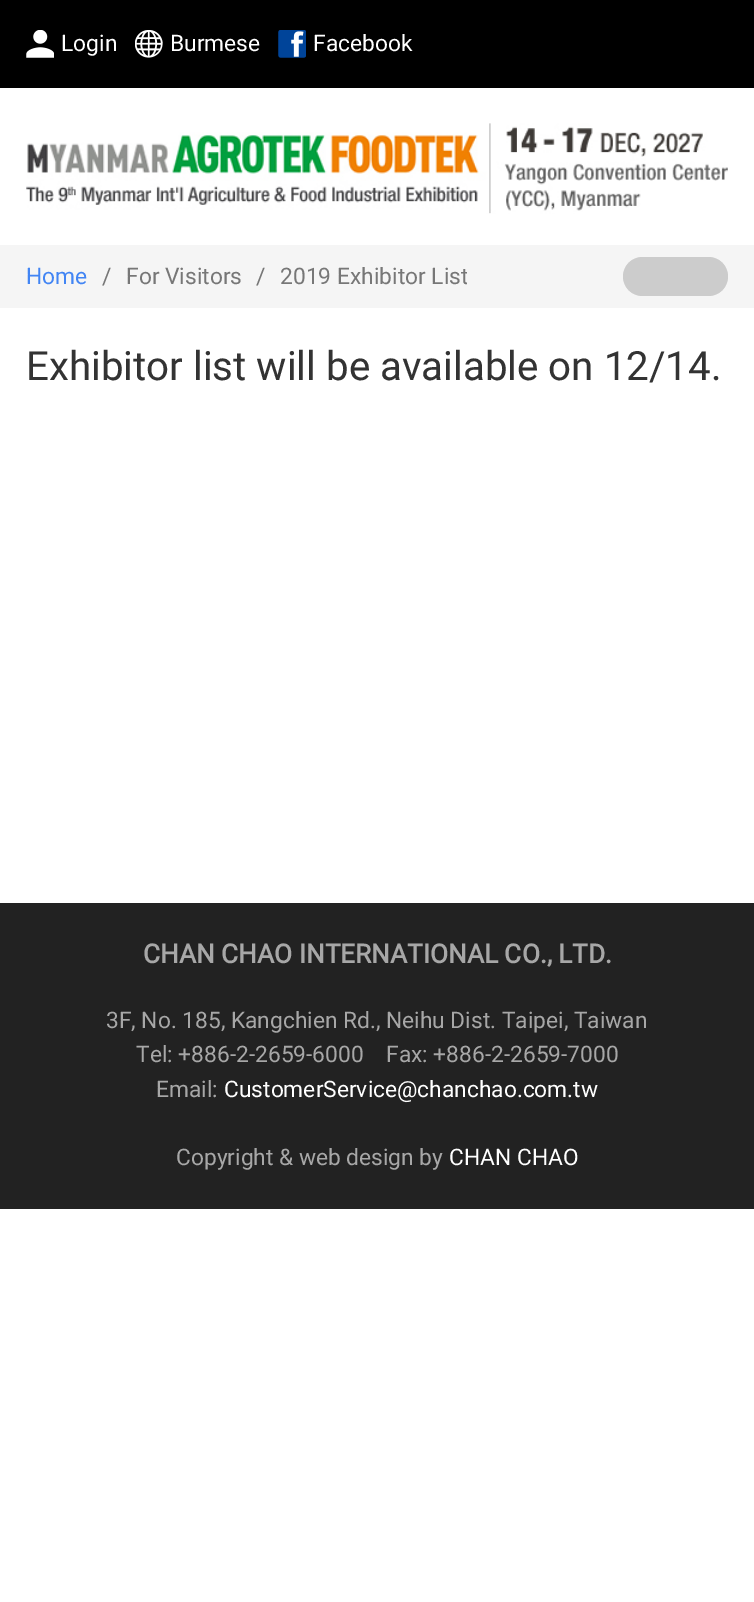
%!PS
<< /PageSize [754 1602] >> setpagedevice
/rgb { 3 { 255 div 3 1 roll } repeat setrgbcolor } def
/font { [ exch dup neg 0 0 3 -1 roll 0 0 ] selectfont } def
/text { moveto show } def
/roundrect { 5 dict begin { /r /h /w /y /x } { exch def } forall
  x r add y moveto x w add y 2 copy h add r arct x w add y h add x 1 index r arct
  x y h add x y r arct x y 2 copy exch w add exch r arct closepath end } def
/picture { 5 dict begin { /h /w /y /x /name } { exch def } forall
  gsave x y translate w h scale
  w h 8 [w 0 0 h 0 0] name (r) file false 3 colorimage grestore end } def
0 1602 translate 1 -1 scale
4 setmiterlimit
255 255 255 rgb
0 0 754 1602 rectfill
0 0 0 rgb
0 0 754 88 rectfill
(img_01.rgb) 26 30 28 28 picture
(img_02.rgb) 135 30 28 28 picture
(img_03.rgb) 278 30 28 28 picture
(img_04.rgb) 26 123 702 91 picture
245 245 245 rgb
0 245 754 63 rectfill
204 204 204 rgb
623 257 105 39 19.5 roundrect fill
34 34 34 rgb
0 903 754 306 rectfill
/Roboto-Regular 22.75 font
255 255 255 rgb
(Login) 61 51 text
(Burmese) 170 51 text
(Facebook) 313 51 text
66 133 244 rgb
(Home) 26 284 text
119 119 119 rgb
(/) 102 284 text
(For Visitors) 126 284 text
(/) 256 284 text
(2019) 280 284 text
gsave
26 245 441 63 rectclip
(Exhibitor List) 337 284 text
grestore
/Roboto-Regular 40.25 font
51 51 51 rgb
(Exhibitor list will be available on 12/14.) 26 380 text
/Roboto-Bold 26.25 font
167 167 167 rgb
(CHAN CHAO INTERNATIONAL CO., LTD.) 143 963 text
/Roboto-Regular 22.75 font
(3F, No. 185, Kangchien Rd., Neihu Dist. Taipei, Taiwan) 106 1028 text
(Tel: +886-2-2659-6000) 136 1062 text
(Fax: +886-2-2659-7000) 386 1062 text
(Email:) 156 1097 text
255 255 255 rgb
(CustomerService@chanchao.com.tw) 224 1097 text
167 167 167 rgb
(Copyright & web design by) 176 1165 text
255 255 255 rgb
(CHAN CHAO) 449 1165 text
showpage
